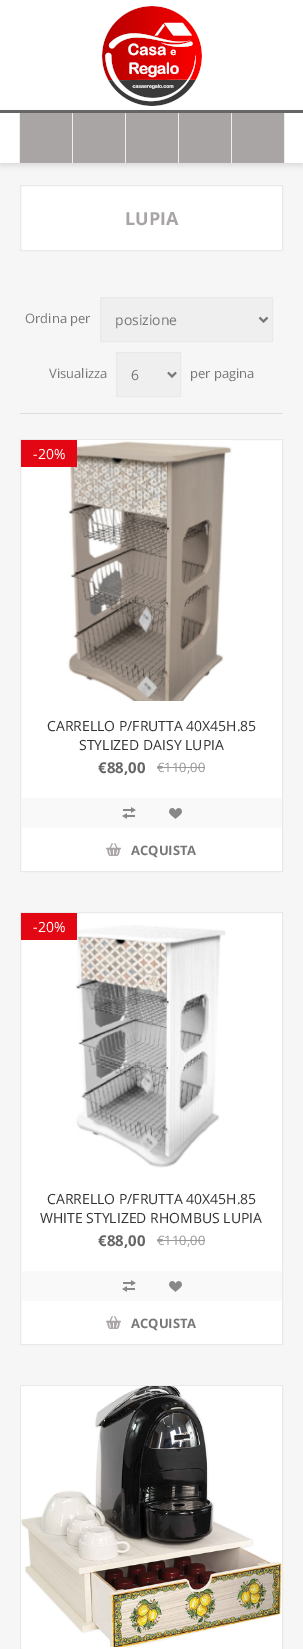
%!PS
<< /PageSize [303 1649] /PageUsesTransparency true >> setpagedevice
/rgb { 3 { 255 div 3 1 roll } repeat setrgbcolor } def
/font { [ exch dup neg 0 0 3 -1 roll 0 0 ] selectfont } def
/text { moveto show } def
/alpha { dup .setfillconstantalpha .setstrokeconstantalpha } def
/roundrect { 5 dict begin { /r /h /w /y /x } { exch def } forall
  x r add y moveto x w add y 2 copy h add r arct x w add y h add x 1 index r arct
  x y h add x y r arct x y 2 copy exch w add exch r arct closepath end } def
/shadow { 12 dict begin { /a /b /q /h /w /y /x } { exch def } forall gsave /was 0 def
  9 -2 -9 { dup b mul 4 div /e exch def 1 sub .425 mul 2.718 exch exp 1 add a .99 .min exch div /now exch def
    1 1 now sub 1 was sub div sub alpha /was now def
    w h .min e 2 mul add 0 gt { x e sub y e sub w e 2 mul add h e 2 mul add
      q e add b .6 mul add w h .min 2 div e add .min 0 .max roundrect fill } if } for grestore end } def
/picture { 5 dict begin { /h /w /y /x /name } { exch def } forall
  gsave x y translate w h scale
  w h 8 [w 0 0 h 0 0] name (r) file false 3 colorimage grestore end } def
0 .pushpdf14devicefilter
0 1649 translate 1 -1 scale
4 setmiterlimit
255 255 255 rgb
0 0 303 1649 rectfill
246 246 246 rgb
0 163 303 1486 rectfill
(img_01.rgb) 102 6 100 100 picture
0 0 0 rgb
0 113 303 53 0 2.5 0.1 shadow
255 255 255 rgb
0 113 303 50 rectfill
102 102 102 rgb
0 110 303 3 rectfill
169 165 165 rgb
20 113 52 50 rectfill
238 238 238 rgb
72 113 1 50 rectfill
19 113 1 50 rectfill
169 165 165 rgb
73 113 52 50 rectfill
238 238 238 rgb
125 113 1 50 rectfill
169 165 165 rgb
126 113 52 50 rectfill
238 238 238 rgb
178 113 1 50 rectfill
169 165 165 rgb
179 113 52 50 rectfill
238 238 238 rgb
231 113 1 50 rectfill
169 165 165 rgb
232 113 52 50 rectfill
238 238 238 rgb
284 113 1 50 rectfill
255 255 255 rgb
20.5 185.5 moveto 262 0 rlineto 0 65 rlineto -262 0 rlineto closepath gsave fill grestore
233 233 233 rgb
stroke
221 221 221 rgb
20 413 263 1 rectfill
239 239 239 rgb
100.5 297.5 moveto 172 0 rlineto 0 44 rlineto -172 0 rlineto closepath gsave fill grestore
233 233 233 rgb
stroke
119 119 119 rgb
2 setlinewidth
259.5 317.5 moveto 4 4 rlineto 4 -4 rlineto stroke
239 239 239 rgb
116.5 352.5 moveto 64 0 rlineto 0 44 rlineto -64 0 rlineto closepath gsave fill grestore
233 233 233 rgb
1 setlinewidth
stroke
119 119 119 rgb
2 setlinewidth
168 372.5 moveto 4 4 rlineto 4 -4 rlineto stroke
255 255 255 rgb
20.5 439.5 moveto 262 0 rlineto 0 432 rlineto -262 0 rlineto closepath gsave fill grestore
233 233 233 rgb
1 setlinewidth
stroke
(img_02.rgb) 60 440 172 261 picture
227 6 19 rgb
21 440 56 27 rectfill
153 153 153 rgb
157 767 48 1 rectfill
249 249 249 rgb
21 798 261 30 rectfill
136 136 136 rgb
122 807 14 12 rectfill
(img_03.rgb) 114 798 30 30 picture
169 808 13 11 rectfill
(img_04.rgb) 160 798 30 30 picture
169 165 165 rgb
106 843 15 13 rectfill
(img_05.rgb) 106 841 15 18 picture
255 255 255 rgb
20.5 912.5 moveto 262 0 rlineto 0 432 rlineto -262 0 rlineto closepath gsave fill grestore
233 233 233 rgb
stroke
(img_06.rgb) 68 925 158 243 picture
227 6 19 rgb
21 913 56 27 rectfill
153 153 153 rgb
157 1240 48 1 rectfill
249 249 249 rgb
21 1271 261 30 rectfill
136 136 136 rgb
122 1280 14 12 rectfill
(img_03.rgb) 114 1271 30 30 picture
169 1281 13 11 rectfill
(img_04.rgb) 160 1271 30 30 picture
169 165 165 rgb
106 1316 15 13 rectfill
(img_05.rgb) 106 1314 15 18 picture
255 255 255 rgb
21 1647 261 2 rectfill
233 233 233 rgb
20.5 1385.5 262 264 rectstroke
(img_07.rgb) 21 1386 261 261 picture
/OpenSans-Bold 18 font
169 165 165 rgb
(LUPIA) 125 225 text
/OpenSans-Regular 13 font
119 119 119 rgb
(Ordina per) 25 323 text
/OpenSans-Regular 14 font
(posizione) 115 325 text
/OpenSans-Regular 13 font
(Visualizza) 49 378 text
/OpenSans-Regular 14 font
(6) 131 380 text
/OpenSans-Regular 13 font
(per pagina) 190 378 text
/OpenSans-Regular 14 font
255 255 255 rgb
(-20%) 33 459 text
51 51 51 rgb
(CARRELLO P/FRUTTA 40X45H.85) 47 731 text
(STYLIZED DAISY LUPIA) 79 750 text
/OpenSans-Bold 15 font
102 102 102 rgb
(€88,00) 98 773 text
/OpenSans-Regular 13 font
153 153 153 rgb
(€110,00) 157 772 text
/OpenSans-Bold 13 font
119 119 119 rgb
(ACQUISTA) 131 855 text
/OpenSans-Regular 14 font
255 255 255 rgb
(-20%) 33 932 text
51 51 51 rgb
(CARRELLO P/FRUTTA 40X45H.85) 47 1204 text
(WHITE STYLIZED RHOMBUS LUPIA) 40 1223 text
/OpenSans-Bold 15 font
102 102 102 rgb
(€88,00) 98 1246 text
/OpenSans-Regular 13 font
153 153 153 rgb
(€110,00) 157 1245 text
/OpenSans-Bold 13 font
119 119 119 rgb
(ACQUISTA) 131 1328 text
.poppdf14devicefilter showpage
